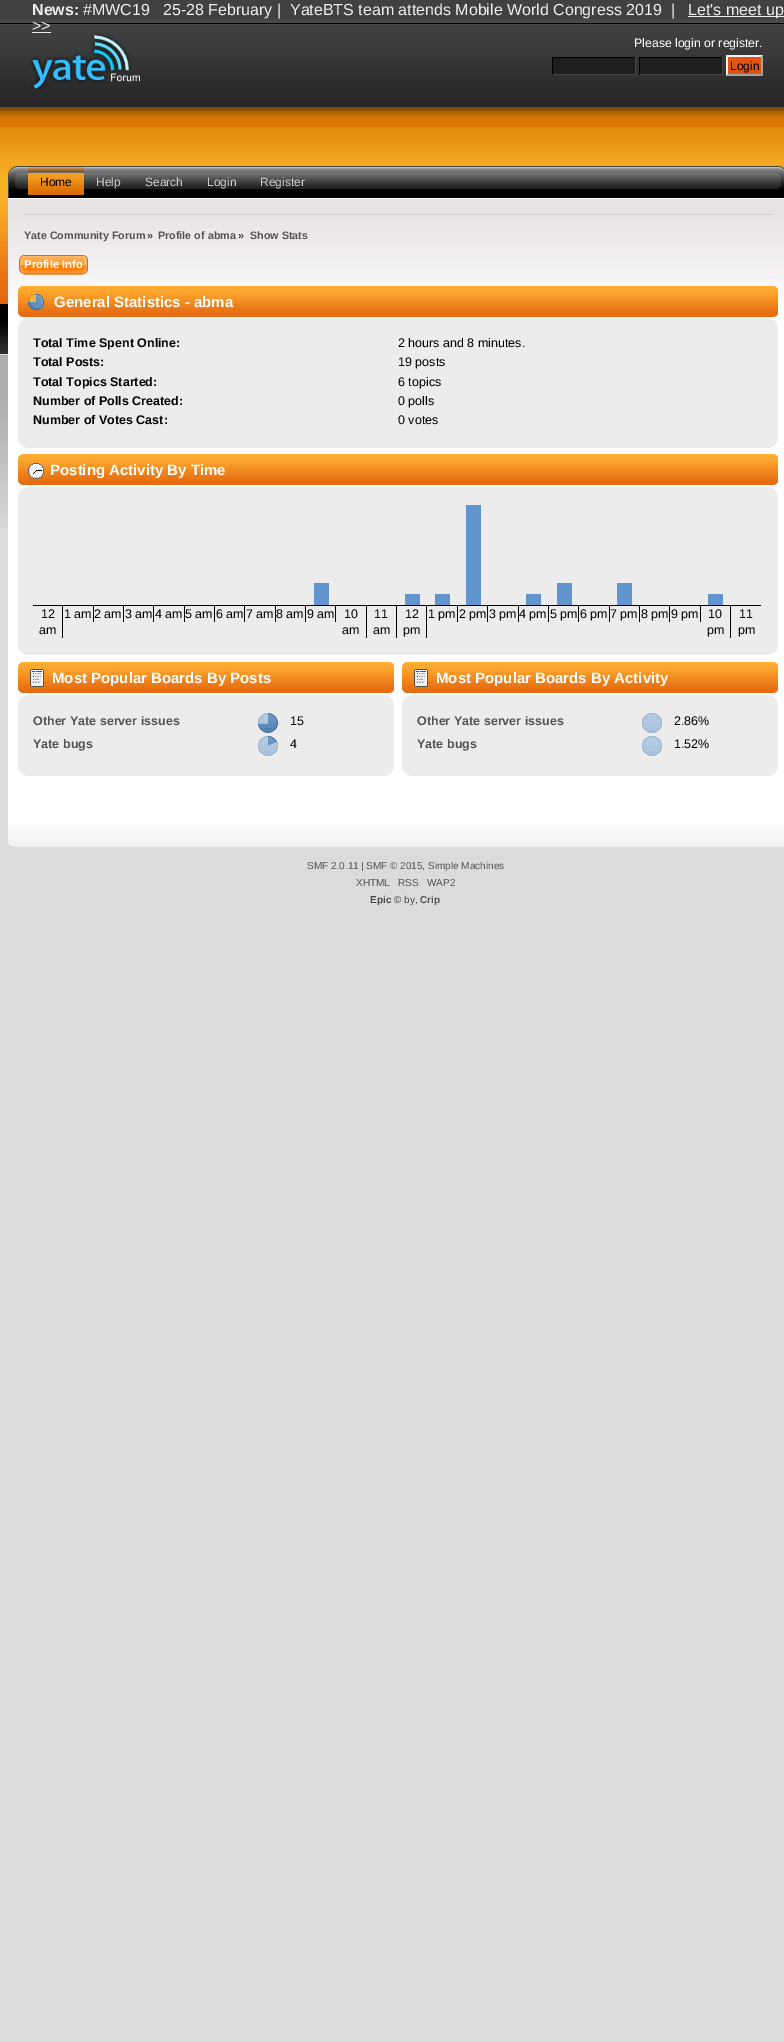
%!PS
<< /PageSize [784 2042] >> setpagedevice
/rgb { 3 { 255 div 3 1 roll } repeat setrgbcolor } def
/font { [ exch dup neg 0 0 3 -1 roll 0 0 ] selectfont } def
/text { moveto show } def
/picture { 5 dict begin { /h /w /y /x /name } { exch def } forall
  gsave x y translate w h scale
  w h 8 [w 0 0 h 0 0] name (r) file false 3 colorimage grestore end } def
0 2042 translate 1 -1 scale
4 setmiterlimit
219 219 219 rgb
0 0 784 2042 rectfill
(img_01.rgb) 0 0 784 528 picture
238 238 238 rgb
688 16 96 1 rectfill
32 32 19 1 rectfill
(img_02.rgb) 30 32 110 58 picture
30 30 30 rgb
553 58 82 16 rectfill
0 0 0 rgb
552 57 84 1 rectfill
69 69 69 rgb
635 57 1 18 rectfill
552 74 84 1 rectfill
0 0 0 rgb
552 57 1 18 rectfill
30 30 30 rgb
640 58 82 16 rectfill
0 0 0 rgb
639 57 84 1 rectfill
69 69 69 rgb
722 57 1 18 rectfill
639 74 84 1 rectfill
0 0 0 rgb
639 57 1 18 rectfill
(img_03.rgb) 728 57 35 19 picture
242 242 242 rgb
726 55 moveto 37 0 rlineto -2 2 rlineto -33 0 rlineto closepath fill
161 161 161 rgb
763 55 moveto 0 21 rlineto -2 -2 rlineto 0 -17 rlineto closepath fill
763 76 moveto -37 0 rlineto 2 -2 rlineto 33 0 rlineto closepath fill
242 242 242 rgb
726 76 moveto 0 -21 rlineto 2 2 rlineto 0 17 rlineto closepath fill
(img_04.rgb) 8 166 20 32 picture
(img_05.rgb) 768 166 16 32 picture
(img_06.rgb) 28 166 740 32 picture
(img_07.rgb) 28 167 56 28 picture
255 255 255 rgb
8 198 776 625 rectfill
(img_08.rgb) 8 199 776 101 picture
204 204 204 rgb
24 214 748 1 rectfill
(img_09.rgb) 24 255 64 20 picture
(img_10.rgb) 19 255 64 20 picture
(img_11.rgb) 18 286 755 31 picture
(img_12.rgb) 773 286 5 31 picture
(img_13.rgb) 28 294 16 16 picture
236 236 236 rgb
18 318 760 130 rectfill
(img_14.rgb) 18 318 8 8 picture
(img_15.rgb) 770 318 8 8 picture
(img_16.rgb) 18 440 8 8 picture
(img_17.rgb) 770 440 8 8 picture
(img_11.rgb) 18 454 755 31 picture
(img_12.rgb) 773 454 5 31 picture
(img_18.rgb) 28 463 16 16 picture
18 487 760 168 rectfill
(img_14.rgb) 18 487 8 8 picture
(img_15.rgb) 770 487 8 8 picture
0 0 0 rgb
33 605 728 1 rectfill
62 605 1 33 rectfill
93 605 1 17 rectfill
123 605 1 17 rectfill
153 605 1 17 rectfill
184 605 1 17 rectfill
214 605 1 17 rectfill
244 605 1 17 rectfill
275 605 1 17 rectfill
305 605 1 17 rectfill
98 148 206 rgb
314 583 15 22 rectfill
0 0 0 rgb
335 605 1 17 rectfill
366 605 1 33 rectfill
396 605 1 33 rectfill
98 148 206 rgb
405 594 15 11 rectfill
0 0 0 rgb
426 605 1 33 rectfill
98 148 206 rgb
435 594 15 11 rectfill
0 0 0 rgb
457 605 1 17 rectfill
98 148 206 rgb
466 505 15 100 rectfill
0 0 0 rgb
487 605 1 17 rectfill
518 605 1 17 rectfill
98 148 206 rgb
526 594 15 11 rectfill
0 0 0 rgb
548 605 1 17 rectfill
98 148 206 rgb
557 583 15 22 rectfill
0 0 0 rgb
578 605 1 17 rectfill
609 605 1 17 rectfill
98 148 206 rgb
617 583 15 22 rectfill
0 0 0 rgb
639 605 1 17 rectfill
669 605 1 17 rectfill
700 605 1 17 rectfill
98 148 206 rgb
708 594 15 11 rectfill
0 0 0 rgb
730 605 1 33 rectfill
(img_16.rgb) 18 647 8 8 picture
(img_17.rgb) 770 647 8 8 picture
(img_19.rgb) 18 662 371 31 picture
(img_20.rgb) 389 662 5 31 picture
(img_21.rgb) 30 669 14 18 picture
236 236 236 rgb
18 695 376 81 rectfill
(img_14.rgb) 18 695 8 8 picture
(img_22.rgb) 386 695 8 8 picture
(img_23.rgb) 258 713 20 20 picture
(img_24.rgb) 258 736 20 20 picture
(img_16.rgb) 18 768 8 8 picture
(img_25.rgb) 386 768 8 8 picture
(img_19.rgb) 402 662 371 31 picture
(img_20.rgb) 773 662 5 31 picture
(img_21.rgb) 414 669 14 18 picture
402 695 376 81 rectfill
(img_14.rgb) 402 695 8 8 picture
(img_22.rgb) 770 695 8 8 picture
(img_26.rgb) 642 713 20 20 picture
(img_26.rgb) 642 736 20 20 picture
(img_16.rgb) 402 768 8 8 picture
(img_25.rgb) 770 768 8 8 picture
(img_27.rgb) 8 823 776 24 picture
(img_28.rgb) 8 843 5 4 picture
783 846 1 1 rectfill
/LiberationSans-Bold 16 font
238 238 238 rgb
(News:) 32 15 text
/LiberationSans-Regular 16 font
(#MWC19   25-28 February |  YateBTS team attends Mobile World Congress 2019  |) 83 15 text
(Let's meet up) 688 15 text
(>>) 32 31 text
/LiberationSans-Regular 12.25 font
255 255 255 rgb
(Please login or register.) 634 47 text
/LiberationSans-Regular 12 font
0 0 0 rgb
(Login) 730 70 text
(Home) 40 186 text
206 206 206 rgb
(Help) 96 186 text
(Search) 145 186 text
(Login) 207 186 text
(Register) 260 186 text
/LiberationSans-Bold 10.75 font
83 83 83 rgb
(Yate Community Forum) 24 239 text
68 68 68 rgb
(») 147 239 text
83 83 83 rgb
(Profile of abma) 158 239 text
68 68 68 rgb
(») 238 239 text
83 83 83 rgb
(Show Stats) 250 239 text
/LiberationSans-Bold 11.25 font
255 255 255 rgb
(Profile Info) 24 268 text
/LiberationSans-Bold 15 font
(General Statistics - abma) 54 307 text
/LiberationSans-Bold 12.5 font
0 0 0 rgb
(Total Time Spent Online:) 33 347 text
/LiberationSans-Regular 12.5 font
(2 hours and 8 minutes.) 398 347 text
/LiberationSans-Bold 12.5 font
(Total Posts:) 33 366 text
/LiberationSans-Regular 12.5 font
(19 posts) 398 366 text
/LiberationSans-Bold 12.5 font
(Total Topics Started:) 33 386 text
/LiberationSans-Regular 12.5 font
(6 topics) 398 386 text
/LiberationSans-Bold 12.5 font
(Number of Polls Created:) 33 405 text
/LiberationSans-Regular 12.5 font
(0 polls) 398 405 text
/LiberationSans-Bold 12.5 font
(Number of Votes Cast:) 33 424 text
/LiberationSans-Regular 12.5 font
(0 votes) 398 424 text
/LiberationSans-Bold 15 font
255 255 255 rgb
(Posting Activity By Time) 50 475 text
/LiberationSans-Regular 12.5 font
0 0 0 rgb
(12) 41 618 text
(am) 39 634 text
(1 am) 64 618 text
(2 am) 94 618 text
(3 am) 125 618 text
(4 am) 155 618 text
(5 am) 185 618 text
(6 am) 216 618 text
(7 am) 246 618 text
(8 am) 276 618 text
(9 am) 307 618 text
(10) 344 618 text
(am) 342 634 text
(11) 374 618 text
(am) 373 634 text
(12) 405 618 text
(pm) 403 634 text
(1 pm) 428 618 text
(2 pm) 459 618 text
(3 pm) 489 618 text
(4 pm) 519 618 text
(5 pm) 550 618 text
(6 pm) 580 618 text
(7 pm) 610 618 text
(8 pm) 641 618 text
(9 pm) 671 618 text
(10) 708 618 text
(pm) 707 634 text
(11) 739 618 text
(pm) 738 634 text
/LiberationSans-Bold 15 font
255 255 255 rgb
(Most Popular Boards By Posts) 52 683 text
/LiberationSans-Bold 12.5 font
83 83 83 rgb
(Other Yate server issues) 33 725 text
/LiberationSans-Regular 12.5 font
0 0 0 rgb
(15) 290 725 text
/LiberationSans-Bold 12.5 font
83 83 83 rgb
(Yate bugs) 33 748 text
/LiberationSans-Regular 12.5 font
0 0 0 rgb
(4) 290 748 text
/LiberationSans-Bold 15 font
255 255 255 rgb
(Most Popular Boards By Activity) 436 683 text
/LiberationSans-Bold 12.5 font
83 83 83 rgb
(Other Yate server issues) 417 725 text
/LiberationSans-Regular 12.5 font
0 0 0 rgb
(2.86%) 674 725 text
/LiberationSans-Bold 12.5 font
83 83 83 rgb
(Yate bugs) 417 748 text
/LiberationSans-Regular 12.5 font
0 0 0 rgb
(1.52%) 674 748 text
/LiberationSans-Regular 10 font
83 83 83 rgb
(SMF 2.0.11) 307 869 text
68 68 68 rgb
(|) 361 869 text
83 83 83 rgb
(SMF © 2015) 366 869 text
68 68 68 rgb
(,) 422 869 text
83 83 83 rgb
(Simple Machines) 428 869 text
(XHTML) 356 886 text
(RSS) 398 886 text
(WAP2) 427 886 text
/LiberationSans-Bold 10 font
68 68 68 rgb
(Epic) 370 903 text
/LiberationSans-Regular 10 font
(© by,) 394 903 text
/LiberationSans-Bold 10 font
83 83 83 rgb
(Crip) 420 903 text
showpage
